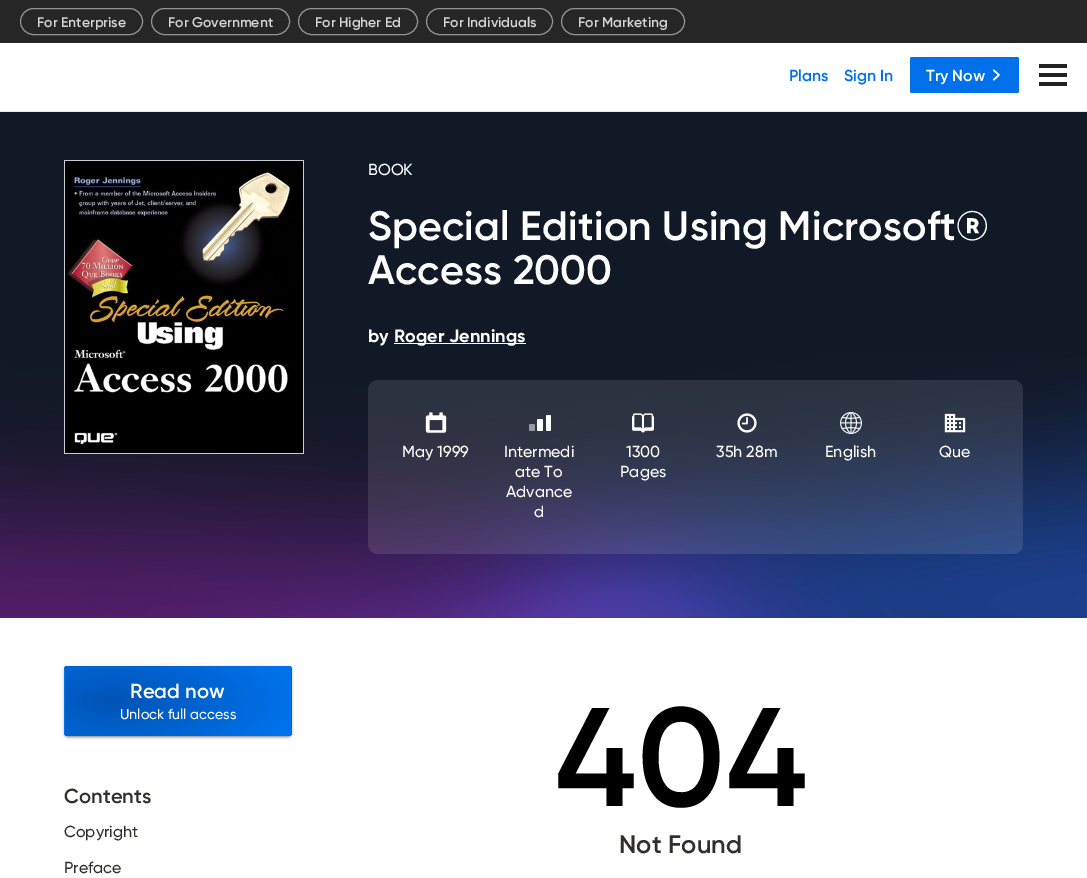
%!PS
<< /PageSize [1087 878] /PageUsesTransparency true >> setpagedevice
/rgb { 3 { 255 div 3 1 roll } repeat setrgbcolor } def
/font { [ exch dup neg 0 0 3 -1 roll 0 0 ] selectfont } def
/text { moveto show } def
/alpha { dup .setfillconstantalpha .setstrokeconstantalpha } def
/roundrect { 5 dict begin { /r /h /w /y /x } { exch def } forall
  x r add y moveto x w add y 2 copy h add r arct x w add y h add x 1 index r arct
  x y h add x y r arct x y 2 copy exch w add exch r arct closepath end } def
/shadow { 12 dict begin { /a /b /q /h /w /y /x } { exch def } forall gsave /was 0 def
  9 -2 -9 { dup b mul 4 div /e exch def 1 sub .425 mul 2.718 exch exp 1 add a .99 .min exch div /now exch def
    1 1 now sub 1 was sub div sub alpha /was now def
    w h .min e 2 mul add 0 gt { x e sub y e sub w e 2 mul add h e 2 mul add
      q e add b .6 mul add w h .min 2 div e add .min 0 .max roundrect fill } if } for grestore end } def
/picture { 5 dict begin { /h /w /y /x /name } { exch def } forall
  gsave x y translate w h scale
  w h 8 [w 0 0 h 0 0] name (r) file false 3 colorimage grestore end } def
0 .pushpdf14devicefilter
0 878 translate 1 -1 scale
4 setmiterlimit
255 255 255 rgb
0 0 1087 878 rectfill
230 230 230 rgb
0 111 1087 1 rectfill
38 38 38 rgb
0 0 1087 43 rectfill
147 147 147 rgb
20.5 8.5 122 26 13 roundrect stroke
151.5 8.5 138 26 13 roundrect stroke
298.5 8.5 119 26 13 roundrect stroke
426.5 8.5 126 26 13 roundrect stroke
561.5 8.5 123 26 13 roundrect stroke
0 113 235 rgb
910 57 109 36 2 roundrect fill
(img_01.rgb) 992 69 8 12 picture
34 34 34 rgb
1039 73 28 4 rectfill
1039 64 28 4 rectfill
1039 82 28 4 rectfill
18 25 38 rgb
0 112 1087 506 rectfill
(img_02.rgb) 0 357 1087 261 picture
202 203 214 rgb
64 160 240 294 rectfill
(img_03.rgb) 65 161 238 292 picture
255 255 255 rgb
394 343 132 1 rectfill
0.11 alpha
368 380 655 174 10 roundrect fill
1 alpha
(img_04.rgb) 425 412 22 21 picture
151 153 160 rgb
529 424 6 7 1.5 roundrect fill
255 255 255 rgb
537 419 6 12 1.5 roundrect fill
546 415 5 16 1.5 roundrect fill
(img_05.rgb) 632 413 22 20 picture
(img_06.rgb) 737 413 20 20 picture
(img_07.rgb) 840 412 22 22 picture
(img_08.rgb) 944 413 22 20 picture
0 0 0 rgb
64 667 228 70 4 2.5 0.12 shadow
64 668 228 70 4 1 0.14 shadow
66 671 224 66 2 0.5 0.2 shadow
gsave
64 666 228 70 4 roundrect clip newpath
gsave 65 666 moveto 226 0 rlineto 0 1 rlineto -226 0 rlineto closepath clip newpath 112 633 translate 179 72 scale
<< /ShadingType 3 /ColorSpace /DeviceRGB /Coords [0 0 0 0 0 1] /Extend [true true] /Function << /FunctionType 2 /Domain [0 1] /C0 [0 0.329 0.71] /C1 [0 0.443 0.922] /N 1 >> >> shfill grestore
gsave 64 667 moveto 1 0 rlineto 0 68 rlineto -1 0 rlineto closepath clip newpath -114 701 translate 179 72 scale
<< /ShadingType 3 /ColorSpace /DeviceRGB /Coords [0 0 0 0 0 1] /Extend [true true] /Function << /FunctionType 2 /Domain [0 1] /C0 [0 0.329 0.71] /C1 [0 0.443 0.922] /N 1 >> >> shfill grestore
gsave 65 667 moveto 226 0 rlineto 0 68 rlineto -226 0 rlineto closepath clip newpath 112 701 translate 179 72 scale
<< /ShadingType 3 /ColorSpace /DeviceRGB /Coords [0 0 0 0 0 1] /Extend [true true] /Function << /FunctionType 2 /Domain [0 1] /C0 [0 0.329 0.71] /C1 [0 0.443 0.922] /N 1 >> >> shfill grestore
gsave 291 667 moveto 1 0 rlineto 0 68 rlineto -1 0 rlineto closepath clip newpath 338 701 translate 179 72 scale
<< /ShadingType 3 /ColorSpace /DeviceRGB /Coords [0 0 0 0 0 1] /Extend [true true] /Function << /FunctionType 2 /Domain [0 1] /C0 [0 0.329 0.71] /C1 [0 0.443 0.922] /N 1 >> >> shfill grestore
gsave 65 735 moveto 226 0 rlineto 0 1 rlineto -226 0 rlineto closepath clip newpath 112 769 translate 179 72 scale
<< /ShadingType 3 /ColorSpace /DeviceRGB /Coords [0 0 0 0 0 1] /Extend [true true] /Function << /FunctionType 2 /Domain [0 1] /C0 [0 0.329 0.71] /C1 [0 0.443 0.922] /N 1 >> >> shfill grestore
grestore
/Gilroy-SemiBold 14 font
212 212 212 rgb
(For Enterprise) 37 27 text
(For Government) 168 27 text
(For Higher Ed) 315 27 text
(For Individuals) 443 27 text
(For Marketing) 578 27 text
/Gilroy-SemiBold 16 font
0 113 235 rgb
(Plans) 789 81 text
(Sign In) 844 81 text
255 255 255 rgb
(Try Now) 926 81 text
/Gilroy-Medium 16 font
(BOOK) 368 175 text
/Gilroy-SemiBold 41 font
368 240 moveto 0.2 0 (Special Edition Using Microsoft®) ashow
368 284 moveto 0.2 0 (Access 2000) ashow
/Gilroy-Bold 18 font
368 342 moveto 0.1 0 (by) ashow
394 342 moveto 0.1 0 (Roger Jennings) ashow
/Gilroy-Medium 16 font
(May 1999) 402 457 text
(Intermedi) 504 457 text
(ate To) 515 477 text
(Advance) 506 497 text
(d) 534 517 text
(1300) 626 457 text
(Pages) 620 477 text
(35h 28m) 716 457 text
(English) 825 457 text
(Que) 939 457 text
/Gilroy-SemiBold 20.25 font
130 698 moveto 0.1 0 (Read now) ashow
/Gilroy-Medium 14.25 font
(Unlock full access) 120 719 text
/Gilroy-SemiBold 20.25 font
48 47 42 rgb
64 803 moveto 0.1 0 (Contents) ashow
/Gilroy-Medium 16 font
(Copyright) 64 837 text
(Preface) 64 873 text
/Gilroy-SemiBold 140 font
0 0 0 rgb
555 806 moveto 1 0 (404) ashow
/Gilroy-SemiBold 25.5 font
48 47 42 rgb
619 853 moveto 0.1 0 (Not Found) ashow
.poppdf14devicefilter showpage
